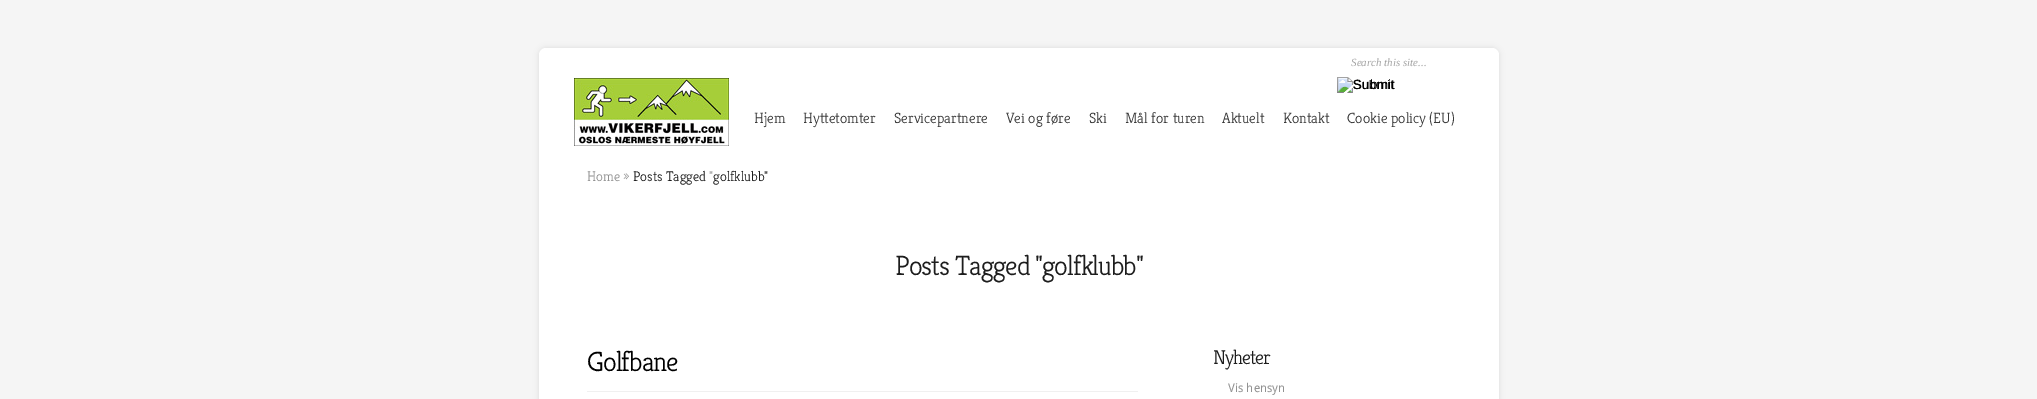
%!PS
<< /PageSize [2037 399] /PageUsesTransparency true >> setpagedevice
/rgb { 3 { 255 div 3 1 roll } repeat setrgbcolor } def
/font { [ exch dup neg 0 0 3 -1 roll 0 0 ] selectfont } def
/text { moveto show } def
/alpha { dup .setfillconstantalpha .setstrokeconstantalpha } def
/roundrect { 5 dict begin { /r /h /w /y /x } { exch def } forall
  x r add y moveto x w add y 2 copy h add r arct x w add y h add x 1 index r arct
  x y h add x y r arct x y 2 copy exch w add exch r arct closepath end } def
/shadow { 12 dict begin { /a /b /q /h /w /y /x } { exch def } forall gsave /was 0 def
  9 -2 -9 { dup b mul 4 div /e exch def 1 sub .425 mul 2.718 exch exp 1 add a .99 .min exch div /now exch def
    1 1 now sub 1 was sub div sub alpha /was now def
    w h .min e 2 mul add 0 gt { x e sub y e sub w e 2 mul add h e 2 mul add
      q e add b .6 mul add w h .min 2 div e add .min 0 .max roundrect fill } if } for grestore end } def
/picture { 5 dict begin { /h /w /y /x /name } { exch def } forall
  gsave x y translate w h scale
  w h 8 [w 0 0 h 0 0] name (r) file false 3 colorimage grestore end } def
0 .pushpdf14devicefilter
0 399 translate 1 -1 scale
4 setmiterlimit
245 245 245 rgb
0 0 2037 399 rectfill
0 0 0 rgb
539 48 960 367 7 3 0.1 shadow
255 255 255 rgb
539 48 960 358 7 roundrect fill
(img_01.rgb) 1337 77 57 16 picture
(img_02.rgb) 574 78 155 68 picture
240 240 240 rgb
587 391 551 1 rectfill
/LiberationSerif-Italic 11 font
163 163 163 rgb
(Search this site...) 1351 66 text
/LiberationSans-Regular 13.5 font
0 0 0 rgb
(Submit) 1353 89 text
/Kreon-Light 15 font
57 57 57 rgb
(Hjem) 754 123 text
(Hyttetomter) 803 123 text
(Servicepartnere) 894 123 text
(Vei og føre) 1006 123 text
(Ski) 1089 123 text
(Mål for turen) 1125 123 text
(Aktuelt) 1222 123 text
(Kontakt) 1283 123 text
(Cookie policy \(EU\)) 1347 123 text
/Kreon-Light 14 font
146 146 146 rgb
(Home ») 587 181 text
29 29 29 rgb
(Posts Tagged) 633 181 text
146 146 146 rgb
(") 709 181 text
29 29 29 rgb
(golfklubb") 713 181 text
/Kreon-Light 28 font
895 275 moveto -1 0 (Posts Tagged "golfklubb") ashow
0 0 0 rgb
587 371 moveto -1 0 (Golfbane) ashow
/Kreon-Light 20 font
29 29 29 rgb
1213 364 moveto -1 0 (Nyheter) ashow
/DroidSans-Regular 12 font
146 146 146 rgb
(Vis hensyn) 1228 392 text
.poppdf14devicefilter showpage
